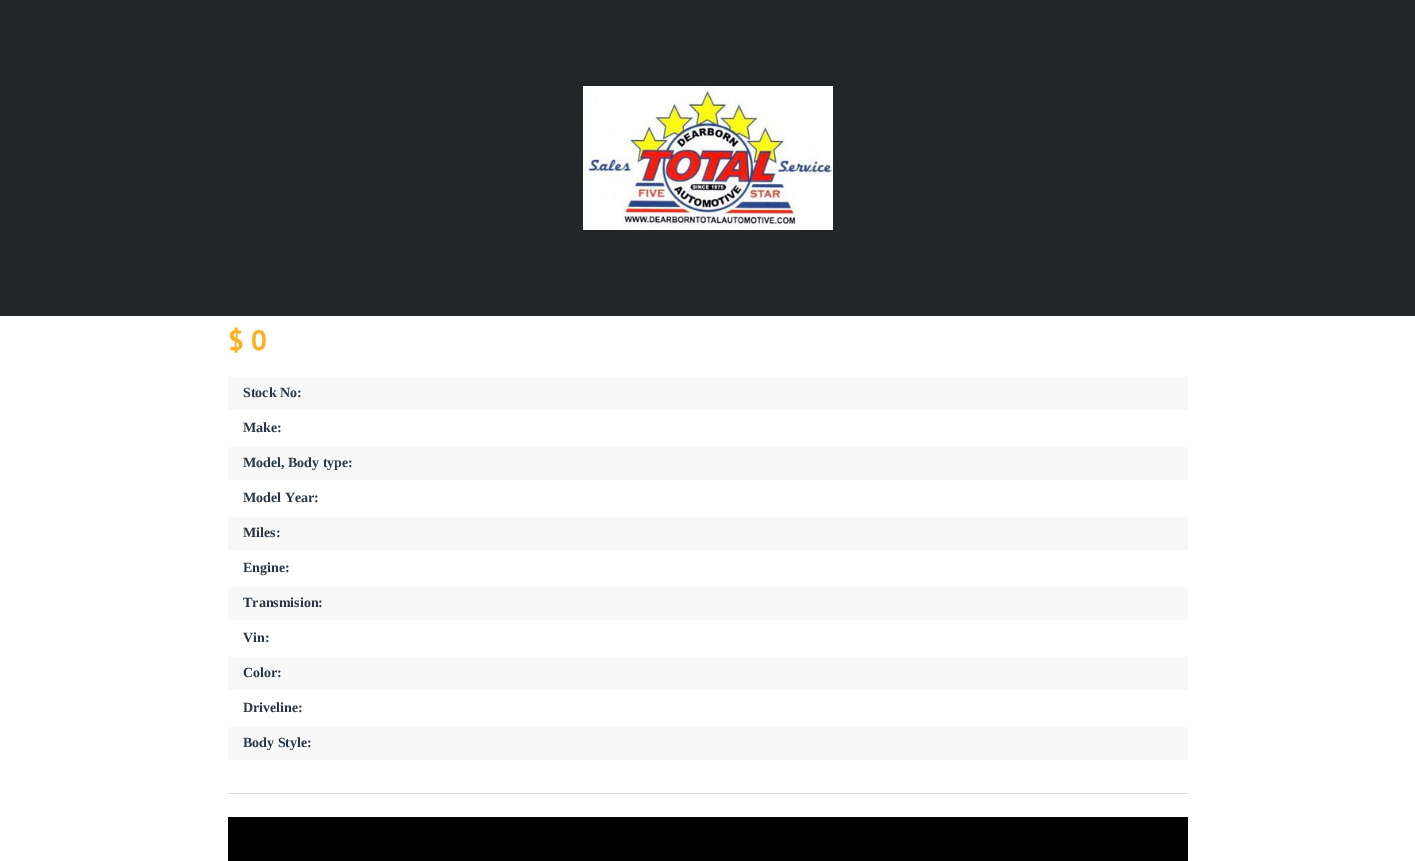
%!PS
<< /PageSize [1415 861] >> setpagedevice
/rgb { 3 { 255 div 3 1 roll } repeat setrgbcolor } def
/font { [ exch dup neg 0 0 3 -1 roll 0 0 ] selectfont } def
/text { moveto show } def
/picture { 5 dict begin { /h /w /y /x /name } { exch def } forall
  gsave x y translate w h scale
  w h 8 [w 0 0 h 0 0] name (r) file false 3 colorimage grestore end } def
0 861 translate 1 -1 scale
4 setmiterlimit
255 255 255 rgb
0 0 1415 861 rectfill
35 38 40 rgb
0 0 1415 316 rectfill
(img_01.rgb) 583 86 250 144 picture
209 213 220 rgb
228 793 960 1 rectfill
248 248 248 rgb
228 377 960 33 rectfill
228 447 960 33 rectfill
228 517 960 33 rectfill
228 587 960 33 rectfill
228 657 960 33 rectfill
228 727 960 33 rectfill
0 0 0 rgb
228 817 960 44 rectfill
/PTSans-Bold 28 font
255 176 31 rgb
($ 0) 228 350 text
/LiberationSerif-Bold 14 font
41 56 72 rgb
(Stock No:) 243 397 text
(Make:) 243 432 text
(Model, Body type:) 243 467 text
(Model Year:) 243 502 text
(Miles:) 243 537 text
(Engine:) 243 572 text
(Transmision:) 243 607 text
(Vin:) 243 642 text
(Color:) 243 677 text
(Driveline:) 243 712 text
(Body Style:) 243 747 text
showpage
